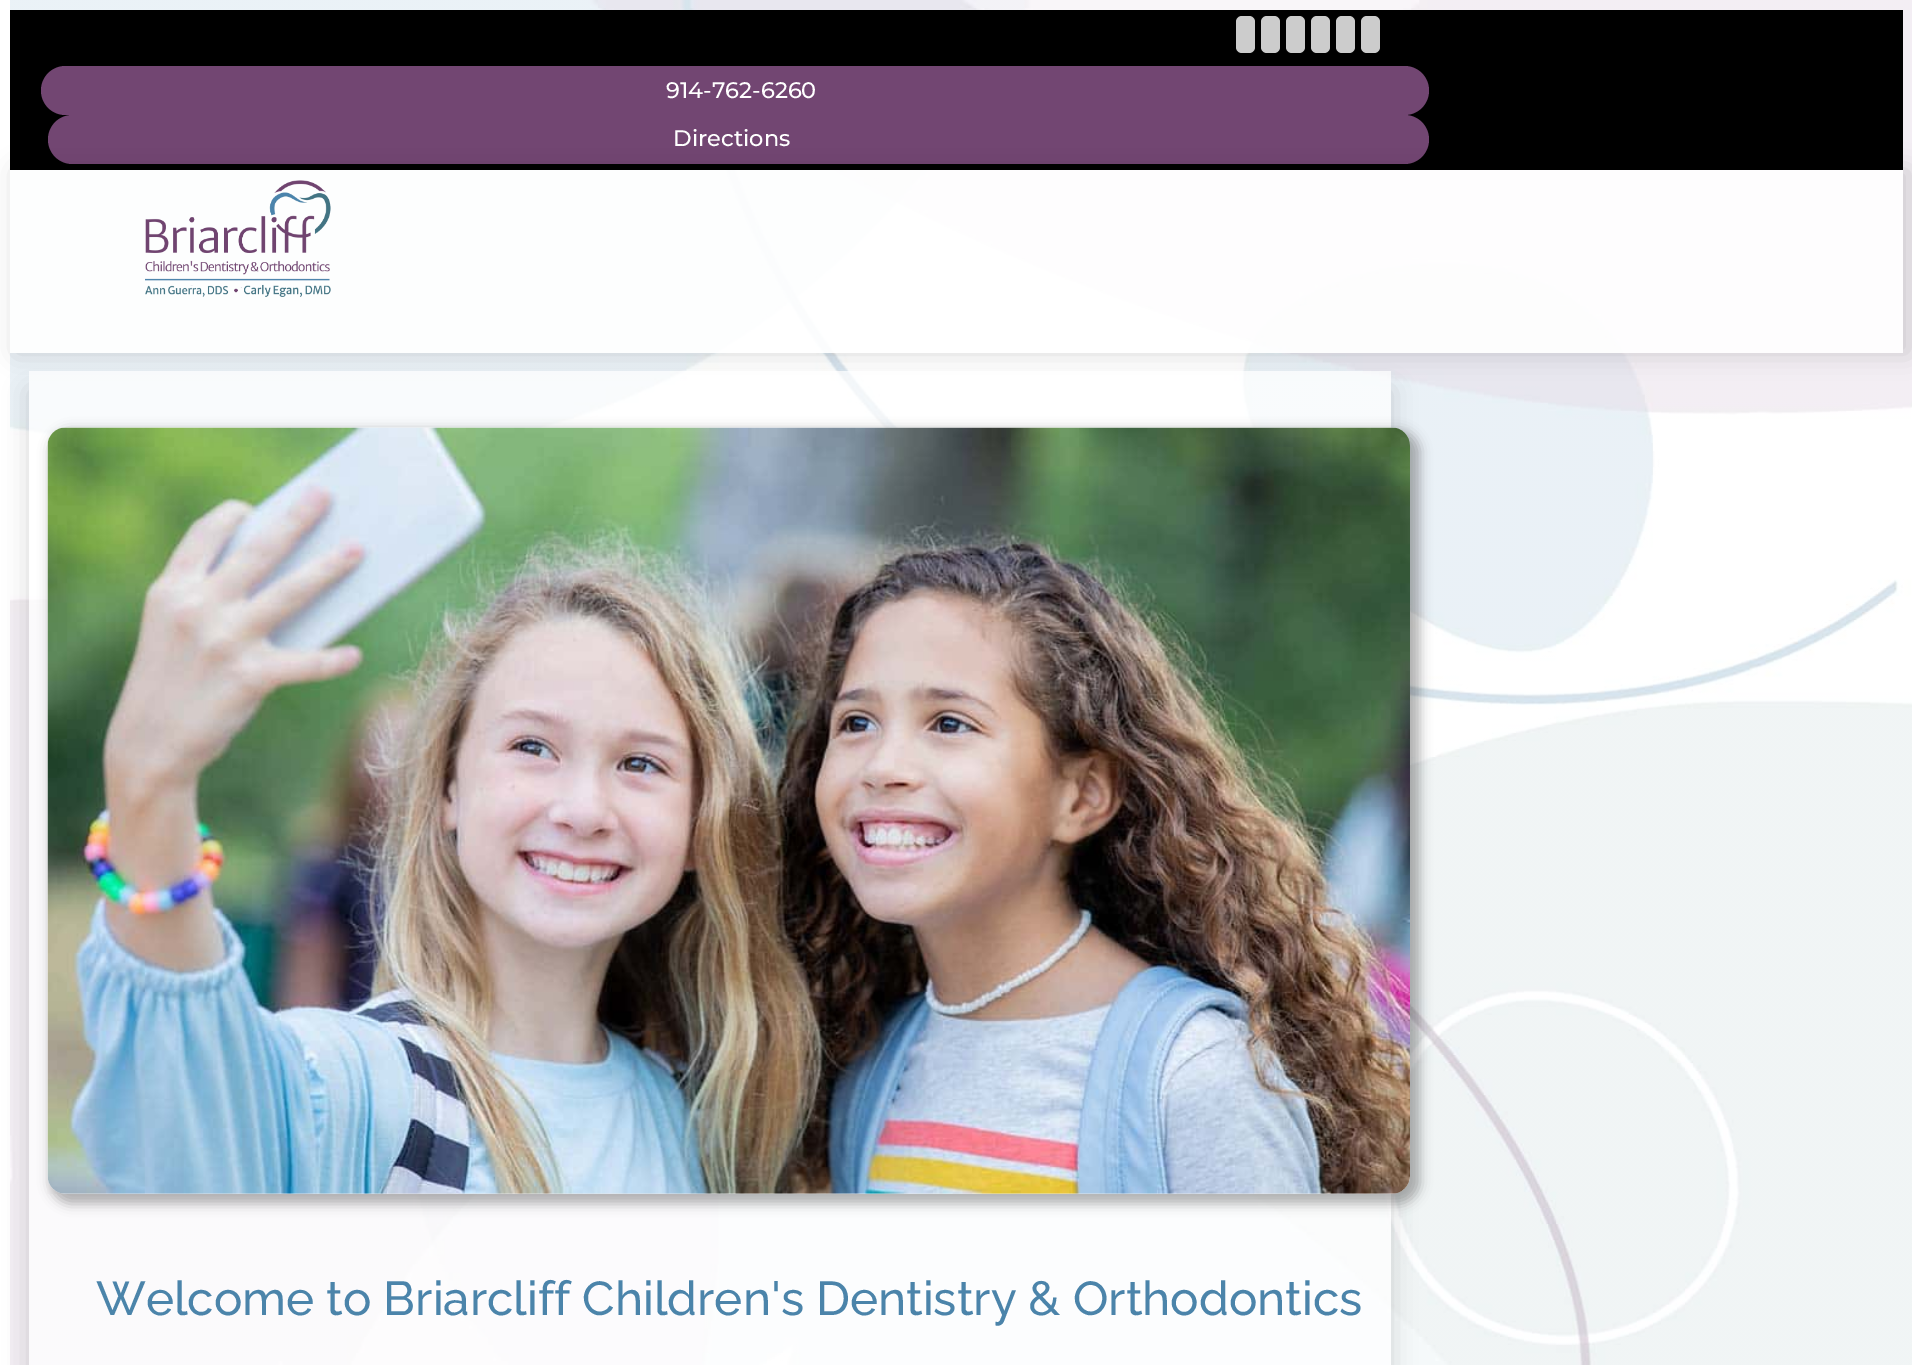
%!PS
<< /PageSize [1912 1365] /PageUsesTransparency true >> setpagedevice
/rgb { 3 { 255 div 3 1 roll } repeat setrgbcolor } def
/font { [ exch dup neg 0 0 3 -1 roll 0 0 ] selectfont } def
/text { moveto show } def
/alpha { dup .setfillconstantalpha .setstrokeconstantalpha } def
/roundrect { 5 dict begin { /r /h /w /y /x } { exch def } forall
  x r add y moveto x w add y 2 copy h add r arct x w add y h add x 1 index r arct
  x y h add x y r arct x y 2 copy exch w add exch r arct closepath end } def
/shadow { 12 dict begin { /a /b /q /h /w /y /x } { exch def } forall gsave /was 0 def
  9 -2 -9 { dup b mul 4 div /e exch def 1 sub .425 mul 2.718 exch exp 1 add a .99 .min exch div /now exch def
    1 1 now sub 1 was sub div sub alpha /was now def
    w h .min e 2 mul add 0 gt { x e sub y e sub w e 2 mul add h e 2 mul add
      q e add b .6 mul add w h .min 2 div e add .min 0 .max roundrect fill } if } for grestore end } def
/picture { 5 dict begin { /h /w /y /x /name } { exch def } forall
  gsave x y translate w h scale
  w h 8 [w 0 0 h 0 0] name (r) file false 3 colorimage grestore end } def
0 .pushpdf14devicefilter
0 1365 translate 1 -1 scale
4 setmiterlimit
255 255 255 rgb
0 0 1912 1365 rectfill
(img_01.rgb) 10 0 1902 1365 picture
0 0 0 rgb
10 10 1893 160 rectfill
204 204 204 rgb
1236 16 19 37 6 roundrect fill
1261 16 19 37 6 roundrect fill
1286 16 19 37 6 roundrect fill
1311 16 19 37 6 roundrect fill
1336 16 19 37 6 roundrect fill
1361 16 19 37 6 roundrect fill
114 70 114 rgb
41 66 1388 49 24.5 roundrect fill
48 115 1381 49 24.5 roundrect fill
gsave
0 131 moveto 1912 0 rlineto 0 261 rlineto -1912 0 rlineto closepath 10 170 moveto 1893 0 rlineto 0 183 rlineto -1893 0 rlineto closepath eoclip newpath
0 0 0 rgb
16 170 1893 183 0 12.5 0.15 shadow
grestore
0.9 alpha
255 255 255 rgb
10 170 1893 183 rectfill
1 alpha
(img_02.rgb) 145 180 186 117 picture
gsave
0 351 moveto 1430 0 rlineto 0 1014 rlineto -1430 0 rlineto closepath 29 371 moveto 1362 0 rlineto 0 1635 rlineto -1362 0 rlineto closepath eoclip newpath
0 0 0 rgb
29 390 1362 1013 0 12.5 0.15 shadow
grestore
0.7 alpha
29 371 1362 994 rectfill
1 alpha
0 0 0 rgb
50 430 1370 774 21 6 0.3 shadow
(img_03.rgb) 47 427 1363 767 picture
/Montserrat-Medium 22.5 font
255 255 255 rgb
(914-762-6260) 666 98 text
(Directions) 673 146 text
/Raleway-Medium 47.5 font
75 132 170 rgb
(Welcome to Briarcliff Children's Dentistry & Orthodontics) 96 1315 text
.poppdf14devicefilter showpage
